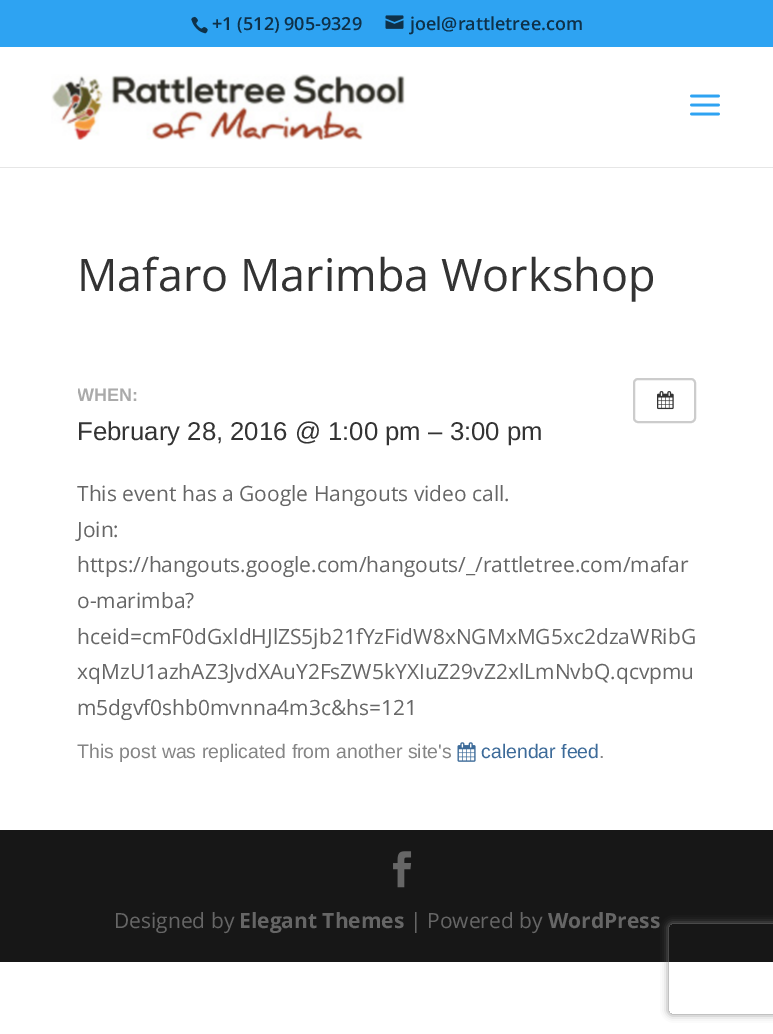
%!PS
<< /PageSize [773 1034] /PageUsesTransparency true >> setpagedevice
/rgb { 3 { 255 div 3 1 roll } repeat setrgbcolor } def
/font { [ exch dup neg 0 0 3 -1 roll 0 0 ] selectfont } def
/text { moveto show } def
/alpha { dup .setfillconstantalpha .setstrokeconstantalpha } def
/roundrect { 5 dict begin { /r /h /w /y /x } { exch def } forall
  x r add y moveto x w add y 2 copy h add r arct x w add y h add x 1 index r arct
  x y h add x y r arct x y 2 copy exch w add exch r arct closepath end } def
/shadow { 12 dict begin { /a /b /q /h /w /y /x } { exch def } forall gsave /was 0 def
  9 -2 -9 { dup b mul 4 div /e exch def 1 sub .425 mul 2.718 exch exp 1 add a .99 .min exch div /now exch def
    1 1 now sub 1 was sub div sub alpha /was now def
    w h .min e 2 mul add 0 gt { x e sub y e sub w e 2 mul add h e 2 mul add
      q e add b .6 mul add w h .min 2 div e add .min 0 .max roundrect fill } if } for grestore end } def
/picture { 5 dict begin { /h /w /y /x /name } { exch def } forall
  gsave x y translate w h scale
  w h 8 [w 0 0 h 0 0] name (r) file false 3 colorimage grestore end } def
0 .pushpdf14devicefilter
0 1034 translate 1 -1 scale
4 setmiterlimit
255 255 255 rgb
0 0 773 1034 rectfill
46 163 242 rgb
0 0 773 47 rectfill
(img_01.rgb) 191 16 17 18 picture
(img_02.rgb) 385 15 19 14 picture
230 230 230 rgb
0 167 773 1 rectfill
(img_03.rgb) 51 74 355 66 picture
(img_04.rgb) 690 94 30 22 picture
204 204 204 rgb
2 setlinewidth
634 379 61 43 4 roundrect stroke
(img_05.rgb) 657 391 17 19 picture
(img_06.rgb) 457 742 19 20 picture
23 23 23 rgb
0 830 773 132 rectfill
(img_07.rgb) 393 851 19 37 picture
gsave
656 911 moveto 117 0 rlineto 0 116 rlineto -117 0 rlineto closepath 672 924 moveto 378 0 rlineto 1.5 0 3 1.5 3 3 rcurveto 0 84 rlineto 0 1.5 -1.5 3 -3 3 rcurveto -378 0 rlineto -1.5 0 -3 -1.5 -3 -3 rcurveto 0 -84 rlineto 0 -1.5 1.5 -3 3 -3 rcurveto closepath eoclip newpath
128 128 128 rgb
669 924 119 90 3 4 1 shadow
grestore
/OpenSans-SemiBold 18 font
14 49 73 rgb
(+1 \(512\) 905-9329) 212 30 text
(joel@rattletree.com) 410 30 text
/OpenSans-Regular 45 font
51 51 51 rgb
(Mafaro Marimba Workshop) 77 291 text
gsave
78 378 540 78 rectclip
/LiberationSans-Bold 18 font
170 170 170 rgb
(WHEN:) 77 401 text
grestore
/LiberationSans-Regular 25.75 font
(February 28, 2016 @ 1:00 pm – 3:00 pm) 77 440 text
/OpenSans-Regular 21 font
102 102 102 rgb
(This event has a Google Hangouts video call.) 77 501 text
(Join:) 77 537 text
(https://hangouts.google.com/hangouts/_/rattletree.com/mafar) 77 572 text
(o-marimba?) 77 608 text
(hceid=cmF0dGxldHJlZS5jb21fYzFidW8xNGMxMG5xc2dzaWRibG) 77 644 text
(xqMzU1azhAZ3JvdXAuY2FsZW5kYXIuZ29vZ2xlLmNvbQ.qcvpmu) 77 679 text
(m5dgvf0shb0mvnna4m3c&hs=121) 77 715 text
/LiberationSans-Regular 19.5 font
133 133 133 rgb
(This post was replicated from another site's) 77 758 text
61 107 153 rgb
(calendar feed) 481 758 text
133 133 133 rgb
(.) 599 758 text
/OpenSans-Regular 21 font
102 102 102 rgb
(Designed by) 114 928 text
/OpenSans-Bold 21 font
(Elegant Themes) 239 928 text
/OpenSans-Regular 21 font
(| Powered by) 410 928 text
/OpenSans-Bold 21 font
(WordPress) 548 928 text
.poppdf14devicefilter showpage
